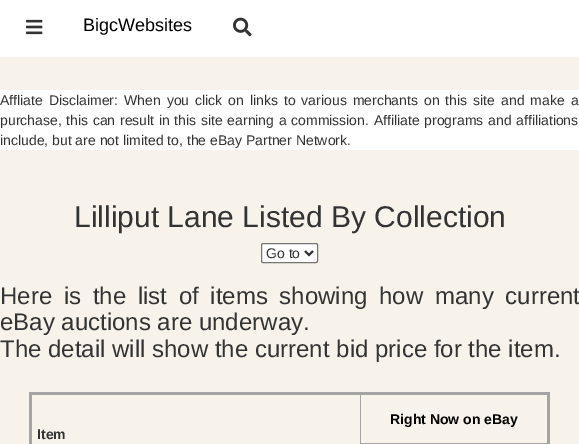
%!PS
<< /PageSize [579 444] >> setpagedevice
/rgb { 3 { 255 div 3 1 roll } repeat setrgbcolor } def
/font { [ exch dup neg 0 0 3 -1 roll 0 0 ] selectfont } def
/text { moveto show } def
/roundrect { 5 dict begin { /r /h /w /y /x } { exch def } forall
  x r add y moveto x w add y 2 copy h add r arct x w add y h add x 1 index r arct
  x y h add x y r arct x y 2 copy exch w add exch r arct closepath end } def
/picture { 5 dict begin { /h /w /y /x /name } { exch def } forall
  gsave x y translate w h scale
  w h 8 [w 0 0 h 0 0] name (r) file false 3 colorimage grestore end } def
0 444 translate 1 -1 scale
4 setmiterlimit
247 242 234 rgb
0 0 579 444 rectfill
255 255 255 rgb
0 0 579 57 rectfill
(img_01.rgb) 26 19 17 16 picture
(img_02.rgb) 233 17 19 20 picture
0 90 579 60 rectfill
261.5 243.5 56 19 1.5 roundrect gsave fill grestore
118 118 118 rgb
stroke
51 51 51 rgb
2 setlinewidth
305 251 moveto 4 4 rlineto 4 -4 rlineto stroke
164 164 164 rgb
360 443 189 1 rectfill
360 393 1 51 rectfill
29 392 521 3 rectfill
547 392 3 52 rectfill
29 392 3 52 rectfill
/LiberationSans-Regular 18 font
0 0 0 rgb
(BigcWebsites) 83 31 text
/LiberationSans-Regular 14 font
51 51 51 rgb
0 105 moveto 2.1 0 32 (Affliate Disclaimer: When you click on links to various merchants on this site and make a) widthshow
0 125 moveto 0.8 0 32 (purchase, this can result in this site earning a commission. Affiliate programs and affiliations) widthshow
(include, but are not limited to, the eBay Partner Network.) 0 145 text
/LiberationSans-Regular 30 font
(Lilliput Lane Listed By Collection) 74 227 text
/LiberationSans-Regular 14 font
(Go to) 266 258 text
/LiberationSans-Regular 24 font
0 304 moveto 5 0 32 (Here is the list of items showing how many current) widthshow
(eBay auctions are underway.) 0 330 text
(The detail will show the current bid price for the item.) 0 357 text
/LiberationSans-Bold 14 font
0 0 0 rgb
(Right Now on eBay) 390 424 text
51 51 51 rgb
(Item) 37 439 text
showpage
